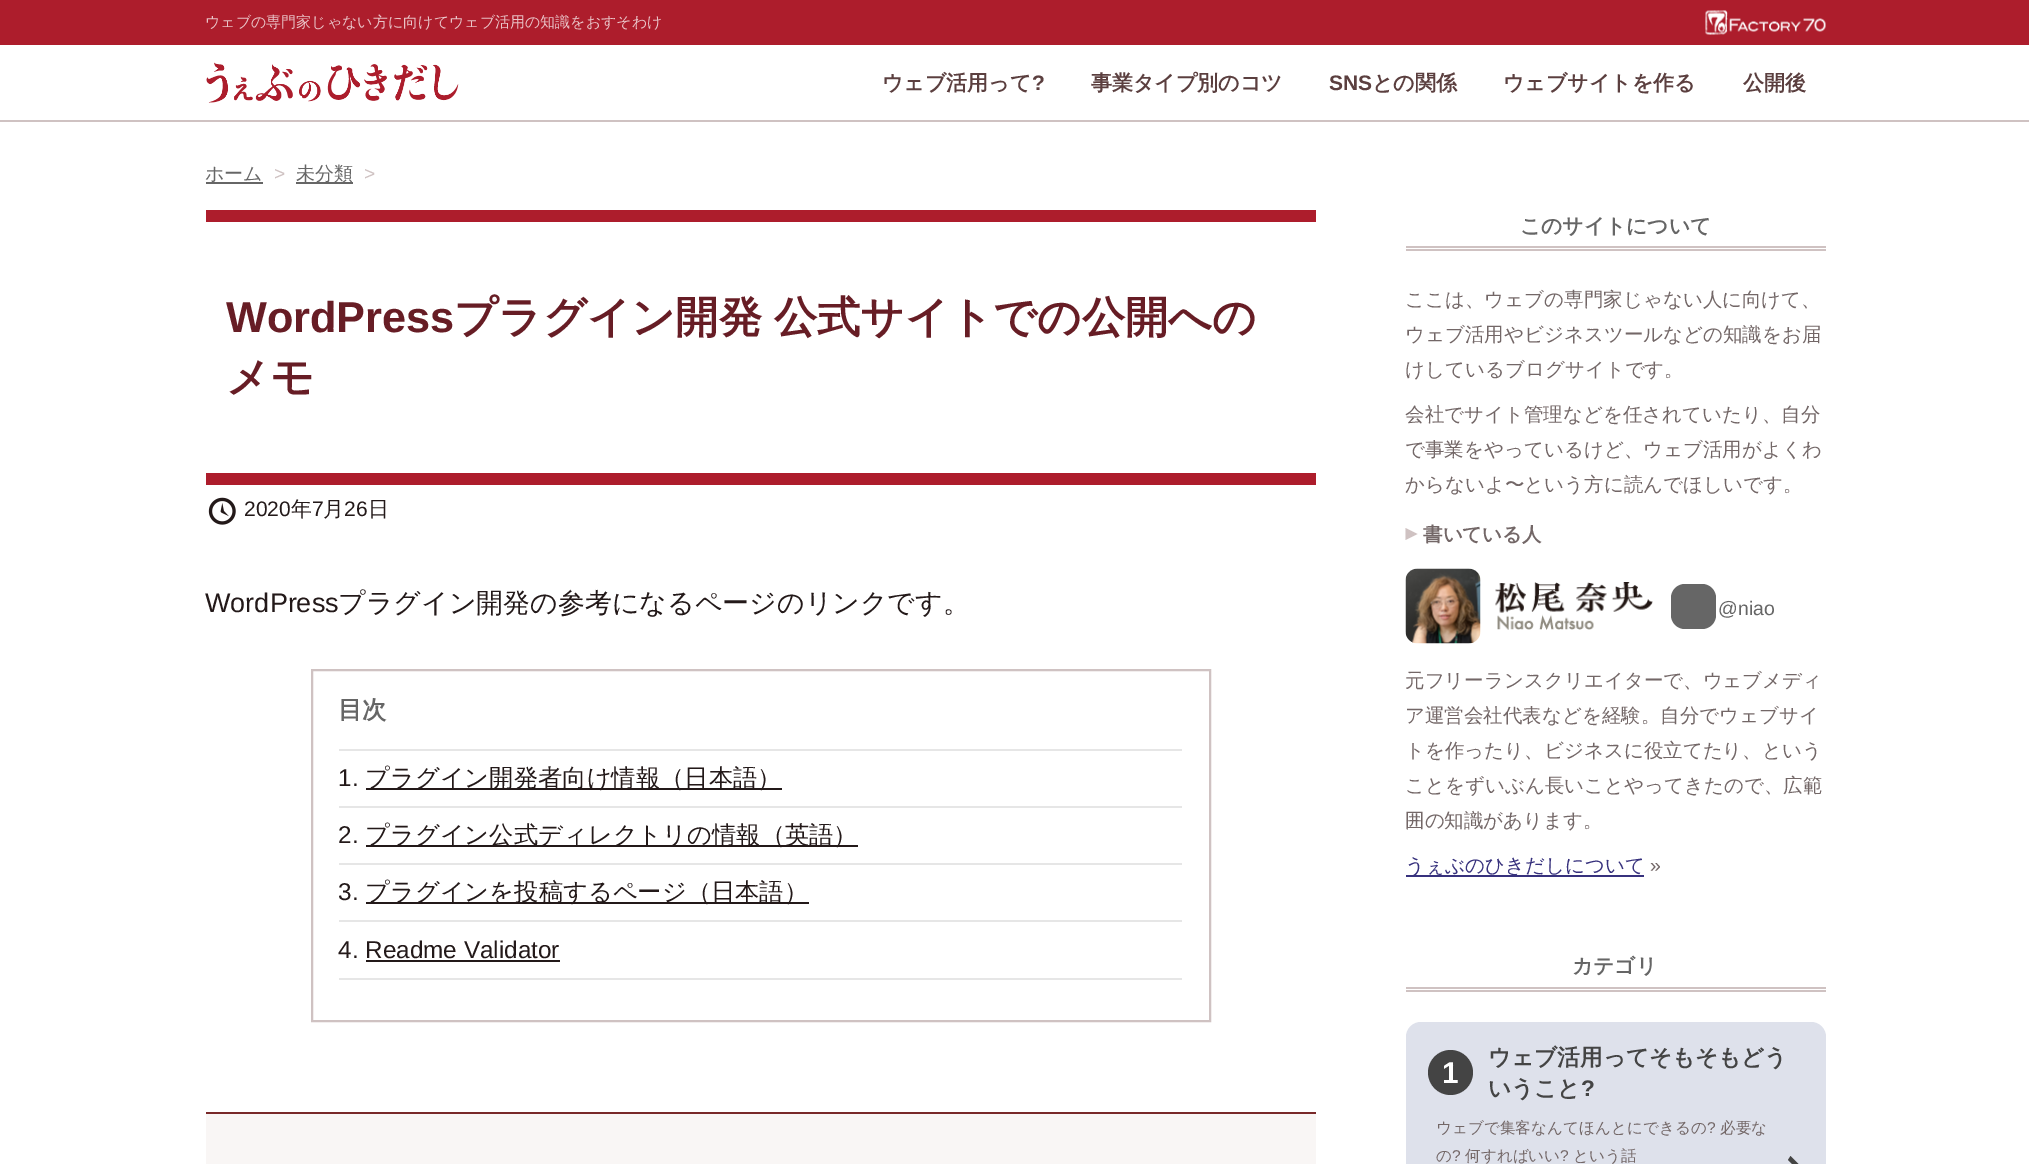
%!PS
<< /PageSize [2029 1164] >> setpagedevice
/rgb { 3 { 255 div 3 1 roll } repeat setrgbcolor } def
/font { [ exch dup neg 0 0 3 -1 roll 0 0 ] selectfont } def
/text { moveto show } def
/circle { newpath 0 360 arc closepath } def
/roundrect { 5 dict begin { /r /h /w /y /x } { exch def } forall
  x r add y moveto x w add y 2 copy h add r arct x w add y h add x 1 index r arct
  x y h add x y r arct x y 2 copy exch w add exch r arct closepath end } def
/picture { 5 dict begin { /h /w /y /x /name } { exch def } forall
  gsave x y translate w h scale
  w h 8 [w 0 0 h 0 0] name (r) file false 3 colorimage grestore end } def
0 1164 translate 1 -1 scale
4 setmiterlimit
255 255 255 rgb
0 0 2029 1164 rectfill
207 194 194 rgb
0 120 2029 2 rectfill
173 29 44 rgb
0 0 2029 45 rectfill
(img_01.rgb) 1705 10 121 25 picture
(img_02.rgb) 206 62 253 41 picture
102 102 102 rgb
206 182 57 2 rectfill
296 182 57 2 rectfill
173 29 44 rgb
206 210 1110 12 rectfill
206 473 1110 12 rectfill
(img_03.rgb) 208 497 28 28 picture
207 194 194 rgb
2 setlinewidth
312 670 898 351 rectstroke
230 230 230 rgb
339 749 843 2 rectfill
35 25 25 rgb
366 788 416 2 rectfill
230 230 230 rgb
339 806 843 2 rectfill
35 25 25 rgb
366 845 492 2 rectfill
230 230 230 rgb
339 863 843 2 rectfill
35 25 25 rgb
366 902 443 2 rectfill
230 230 230 rgb
339 920 843 2 rectfill
339 978 843 2 rectfill
35 25 25 rgb
366 960 194 2 rectfill
249 246 245 rgb
206 1114 1110 50 rectfill
121 41 41 rgb
206 1112 1110 2 rectfill
207 194 194 rgb
1406 246 420 2 rectfill
1406 249 420 2 rectfill
1405.5 540 moveto 0 -12 rlineto 12 6 rlineto closepath fill
(img_04.rgb) 1405 568 76 76 picture
(img_05.rgb) 1495 582 158 48 picture
102 102 102 rgb
1671 584 45 45 14 roundrect fill
55 49 125 rgb
1406 875 238 2 rectfill
207 194 194 rgb
1406 987 420 2 rectfill
1406 990 420 2 rectfill
222 225 235 rgb
1406 1022 420 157 15 roundrect fill
68 68 68 rgb
1450.5 1072.5 22.5 circle fill
1770 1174 moveto 0 -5 rlineto 27 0 rlineto -9 -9 rlineto 2.5 -4 rlineto 15.5 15.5 rlineto -15.5 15.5 rlineto -2.5 -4 rlineto 9 -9 rlineto closepath fill
/WenQuanYiZenHei-Medium 15 font
234 196 200 rgb
(ウェブの専門家じゃない方に向けてウェブ活用の知識をおすそわけ) 205 27 text
/WenQuanYiZenHei-Bold 21 font
91 63 63 rgb
(ウェブ活用って) 882 90 text
/LiberationSans-Bold 21 font
(?) 1032 90 text
/WenQuanYiZenHei-Bold 21 font
(事業タイプ別のコツ) 1091 90 text
/LiberationSans-Bold 21 font
(SNS) 1329 90 text
/WenQuanYiZenHei-Bold 21 font
(との関係) 1372 90 text
(ウェブサイトを作る) 1503 90 text
(公開後) 1743 90 text
/WenQuanYiZenHei-Medium 19 font
102 102 102 rgb
(ホーム) 205 180 text
/LiberationSans-Regular 19 font
207 194 194 rgb
(>) 274 180 text
/WenQuanYiZenHei-Medium 19 font
102 102 102 rgb
(未分類) 296 180 text
/LiberationSans-Regular 19 font
207 194 194 rgb
(>) 364 180 text
/LiberationSans-Bold 43.25 font
103 29 37 rgb
(WordPress) 226 332 text
/WenQuanYiZenHei-Bold 43.25 font
454 332 moveto -1 0 32 (プラグイン開発 公式サイトでの公開への) widthshow
(メモ) 226 392 text
/LiberationSans-Regular 21 font
35 25 25 rgb
(2020) 244 516 text
/WenQuanYiZenHei-Medium 21 font
(年) 291 516 text
/LiberationSans-Regular 21 font
(7) 312 516 text
/WenQuanYiZenHei-Medium 21 font
(月) 323 516 text
/LiberationSans-Regular 21 font
(26) 344 516 text
/WenQuanYiZenHei-Medium 21 font
(日) 368 516 text
/LiberationSans-Regular 27 font
(WordPress) 205 612 text
/WenQuanYiZenHei-Medium 27 font
(プラグイン開発の参考になるページのリンクです。) 338 612 text
/WenQuanYiZenHei-Bold 24.3 font
102 102 102 rgb
(目次) 338 718 text
/LiberationSans-Regular 24.3 font
35 25 25 rgb
(1.) 338 786 text
/WenQuanYiZenHei-Medium 24.3 font
(プラグイン開発者向け情報（日本語）) 365 786 text
/LiberationSans-Regular 24.3 font
(2.) 338 843 text
/WenQuanYiZenHei-Medium 24.3 font
(プラグイン公式ディレクトリの情報（英語）) 365 843 text
/LiberationSans-Regular 24.3 font
(3.) 338 900 text
/WenQuanYiZenHei-Medium 24.3 font
(プラグインを投稿するページ（日本語）) 365 900 text
/LiberationSans-Regular 24.3 font
(4. Readme Validator) 338 958 text
/WenQuanYiZenHei-Bold 20.75 font
102 102 102 rgb
(このサイトについて) 1520 233 text
/WenQuanYiZenHei-Medium 19.5 font
115 103 103 rgb
(ここは、ウェブの専門家じゃない人に向けて、) 1405 306 text
(ウェブ活用やビジネスツールなどの知識をお届) 1405 341 text
(けしているブログサイトです。) 1405 376 text
(会社でサイト管理などを任されていたり、自分) 1405 421 text
(で事業をやっているけど、ウェブ活用がよくわ) 1405 456 text
(からないよ〜という方に読んでほしいです。) 1405 491 text
/WenQuanYiZenHei-Bold 19.5 font
(書いている人) 1423 541 text
/LiberationSans-Regular 19.5 font
102 102 102 rgb
(@niao) 1718 615 text
/WenQuanYiZenHei-Medium 19.5 font
115 103 103 rgb
(元フリーランスクリエイターで、ウェブメディ) 1405 687 text
(ア運営会社代表などを経験。自分でウェブサイ) 1405 722 text
(トを作ったり、ビジネスに役立てたり、という) 1405 757 text
(ことをずいぶん長いことやってきたので、広範) 1405 792 text
(囲の知識があります。) 1405 827 text
55 49 125 rgb
(うぇぶのひきだしについて) 1405 872 text
/LiberationSans-Regular 19.5 font
115 103 103 rgb
(») 1650 872 text
/WenQuanYiZenHei-Bold 20.75 font
102 102 102 rgb
(カテゴリ) 1572 973 text
/LiberationSans-Bold 30 font
255 255 255 rgb
(1) 1442 1083 text
/WenQuanYiZenHei-Bold 22.6 font
68 68 68 rgb
(ウェブ活用ってそもそもどう) 1488 1065 text
(いうこと) 1488 1096 text
/LiberationSans-Bold 22.6 font
(?) 1581 1096 text
/WenQuanYiZenHei-Medium 15.6 font
115 103 103 rgb
(ウェブで集客なんてほんとにできるの) 1436 1133 text
/LiberationSans-Regular 15.6 font
(?) 1707 1133 text
/WenQuanYiZenHei-Medium 15.6 font
(必要な) 1720 1133 text
(の) 1436 1161 text
/LiberationSans-Regular 15.6 font
(?) 1452 1161 text
/WenQuanYiZenHei-Medium 15.6 font
(何すればいい) 1465 1161 text
/LiberationSans-Regular 15.6 font
(?) 1560 1161 text
/WenQuanYiZenHei-Medium 15.6 font
(という話) 1573 1161 text
showpage
